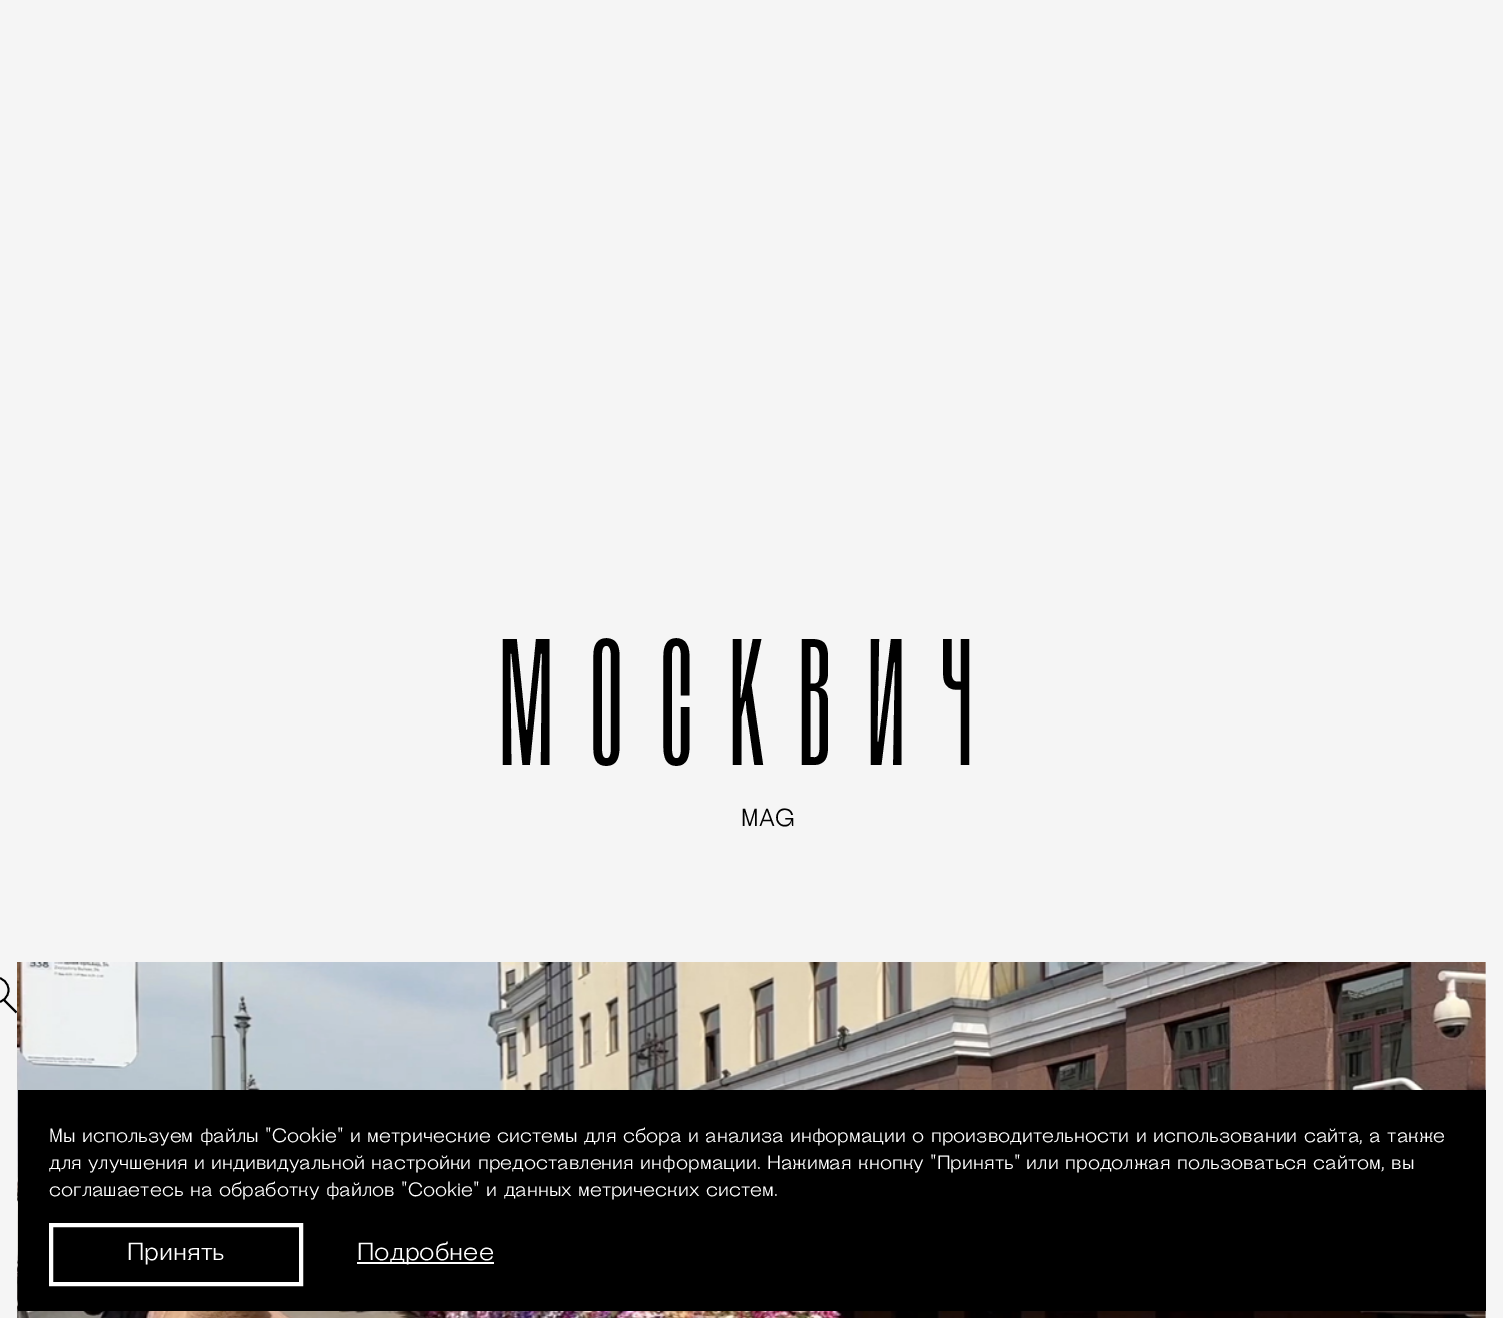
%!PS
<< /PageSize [1503 1318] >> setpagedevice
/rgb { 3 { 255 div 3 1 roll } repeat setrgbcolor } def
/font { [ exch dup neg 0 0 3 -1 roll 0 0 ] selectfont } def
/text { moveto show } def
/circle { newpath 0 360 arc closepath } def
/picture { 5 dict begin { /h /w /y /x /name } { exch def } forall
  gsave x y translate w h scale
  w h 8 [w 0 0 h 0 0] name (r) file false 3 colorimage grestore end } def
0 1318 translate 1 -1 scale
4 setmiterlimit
245 245 245 rgb
0 0 1503 1318 rectfill
0 0 0 rgb
1.8 setlinewidth
-4 990 12.5 circle stroke
3.5 999.5 moveto 13 13 rlineto stroke
(img_01.rgb) 17 962 1469 356 picture
18 1090 1468 221 rectfill
255 255 255 rgb
4 setlinewidth
51 1225 250 59 rectstroke
357 1262 137 2 rectfill
/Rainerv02-Regular 157.5 font
0 0 0 rgb
497 765 moveto 32.75 0 (Москвич) ashow
/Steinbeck-Regular 24.5 font
(MAG) 741 826 text
/Steinbeck-Regular 19.25 font
255 255 255 rgb
(Мы используем файлы "Сookie" и метрические системы для сбора и анализа информации о производительности и использовании сайта, а также) 49 1142 text
(для улучшения и индивидуальной настройки предоставления информации. Нажимая кнопку "Принять" или продолжая пользоваться сайтом, вы) 49 1169 text
(соглашаетесь на обработку файлов "Cookie" и данных метрических систем.) 49 1196 text
/Steinbeck-Regular 24.5 font
(Принять) 127 1260 text
(Подробнее) 357 1260 text
showpage
